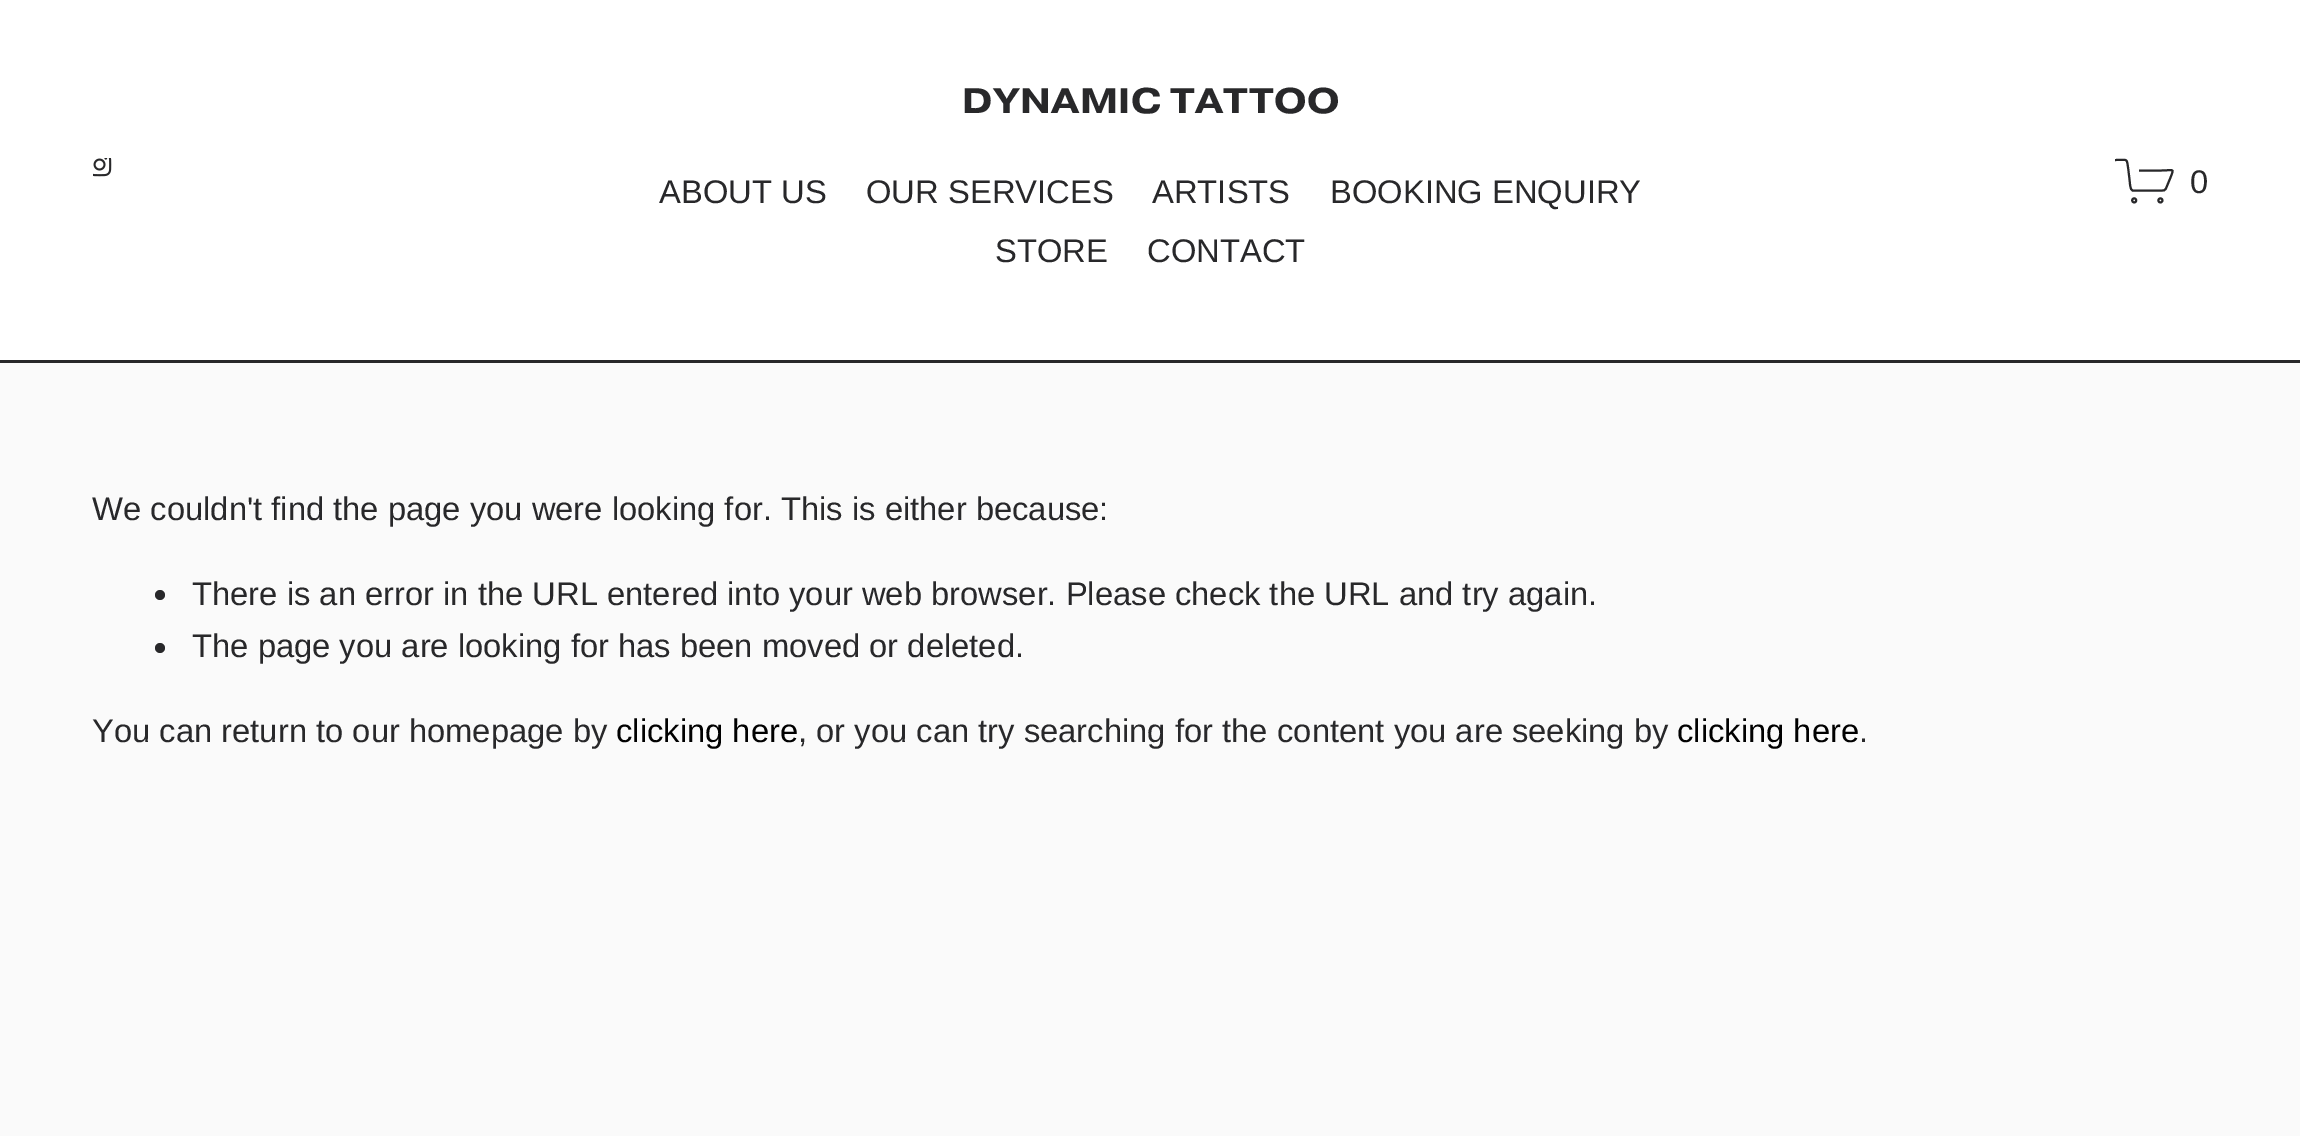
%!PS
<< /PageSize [2300 1136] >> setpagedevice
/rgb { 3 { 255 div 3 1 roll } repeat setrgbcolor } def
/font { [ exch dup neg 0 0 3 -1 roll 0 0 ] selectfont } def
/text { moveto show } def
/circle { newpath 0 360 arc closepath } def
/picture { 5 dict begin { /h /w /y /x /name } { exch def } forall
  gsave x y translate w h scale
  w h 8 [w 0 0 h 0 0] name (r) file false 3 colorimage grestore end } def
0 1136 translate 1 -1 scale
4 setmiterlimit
250 250 250 rgb
0 0 2300 1136 rectfill
255 255 255 rgb
0 0 2300 360 rectfill
(img_01.rgb) 93 158 19 19 picture
40 40 42 rgb
2 setlinewidth
2160.4 200.4 2 circle stroke
2134.2 200.4 2 circle stroke
2115 160 moveto 13.5 0 11.5 -3 13.5 11 rcurveto 1 8.5 rlineto 0.5 1.5 0 11 3.5 11 rcurveto 25 0 rlineto 6.5 0 7 1 9 -4.5 rcurveto 3.5 -8.5 rlineto 4 -10 3 -7 -10 -7 rcurveto -21.5 0 rlineto stroke
0 360 2300 3 rectfill
160 595 5 circle fill
160 648 5 circle fill
/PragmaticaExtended-Bold 35.5 font
962 113 moveto 0.4 0 (DYNAMIC TATTOO) ashow
/LiberationSans-Regular 32.75 font
(ABOUT US) 659 203 text
(OUR SERVICES) 866 203 text
(ARTISTS) 1152 203 text
(BOOKING ENQUIRY) 1330 203 text
(STORE) 995 262 text
(CONTACT) 1147 262 text
(0) 2190 193 text
(We couldn't find the page you were looking for. This is either because:) 92 520 text
(There is an error in the URL entered into your web browser. Please check the URL and try again.) 192 605 text
(The page you are looking for has been moved or deleted.) 192 657 text
(You can return to our homepage by) 92 742 text
0 0 0 rgb
(clicking here) 616 742 text
40 40 42 rgb
(, or you can try searching for the) 798 742 text
(content you are seeking by) 1277 742 text
0 0 0 rgb
(clicking here) 1677 742 text
40 40 42 rgb
(.) 1859 742 text
showpage
